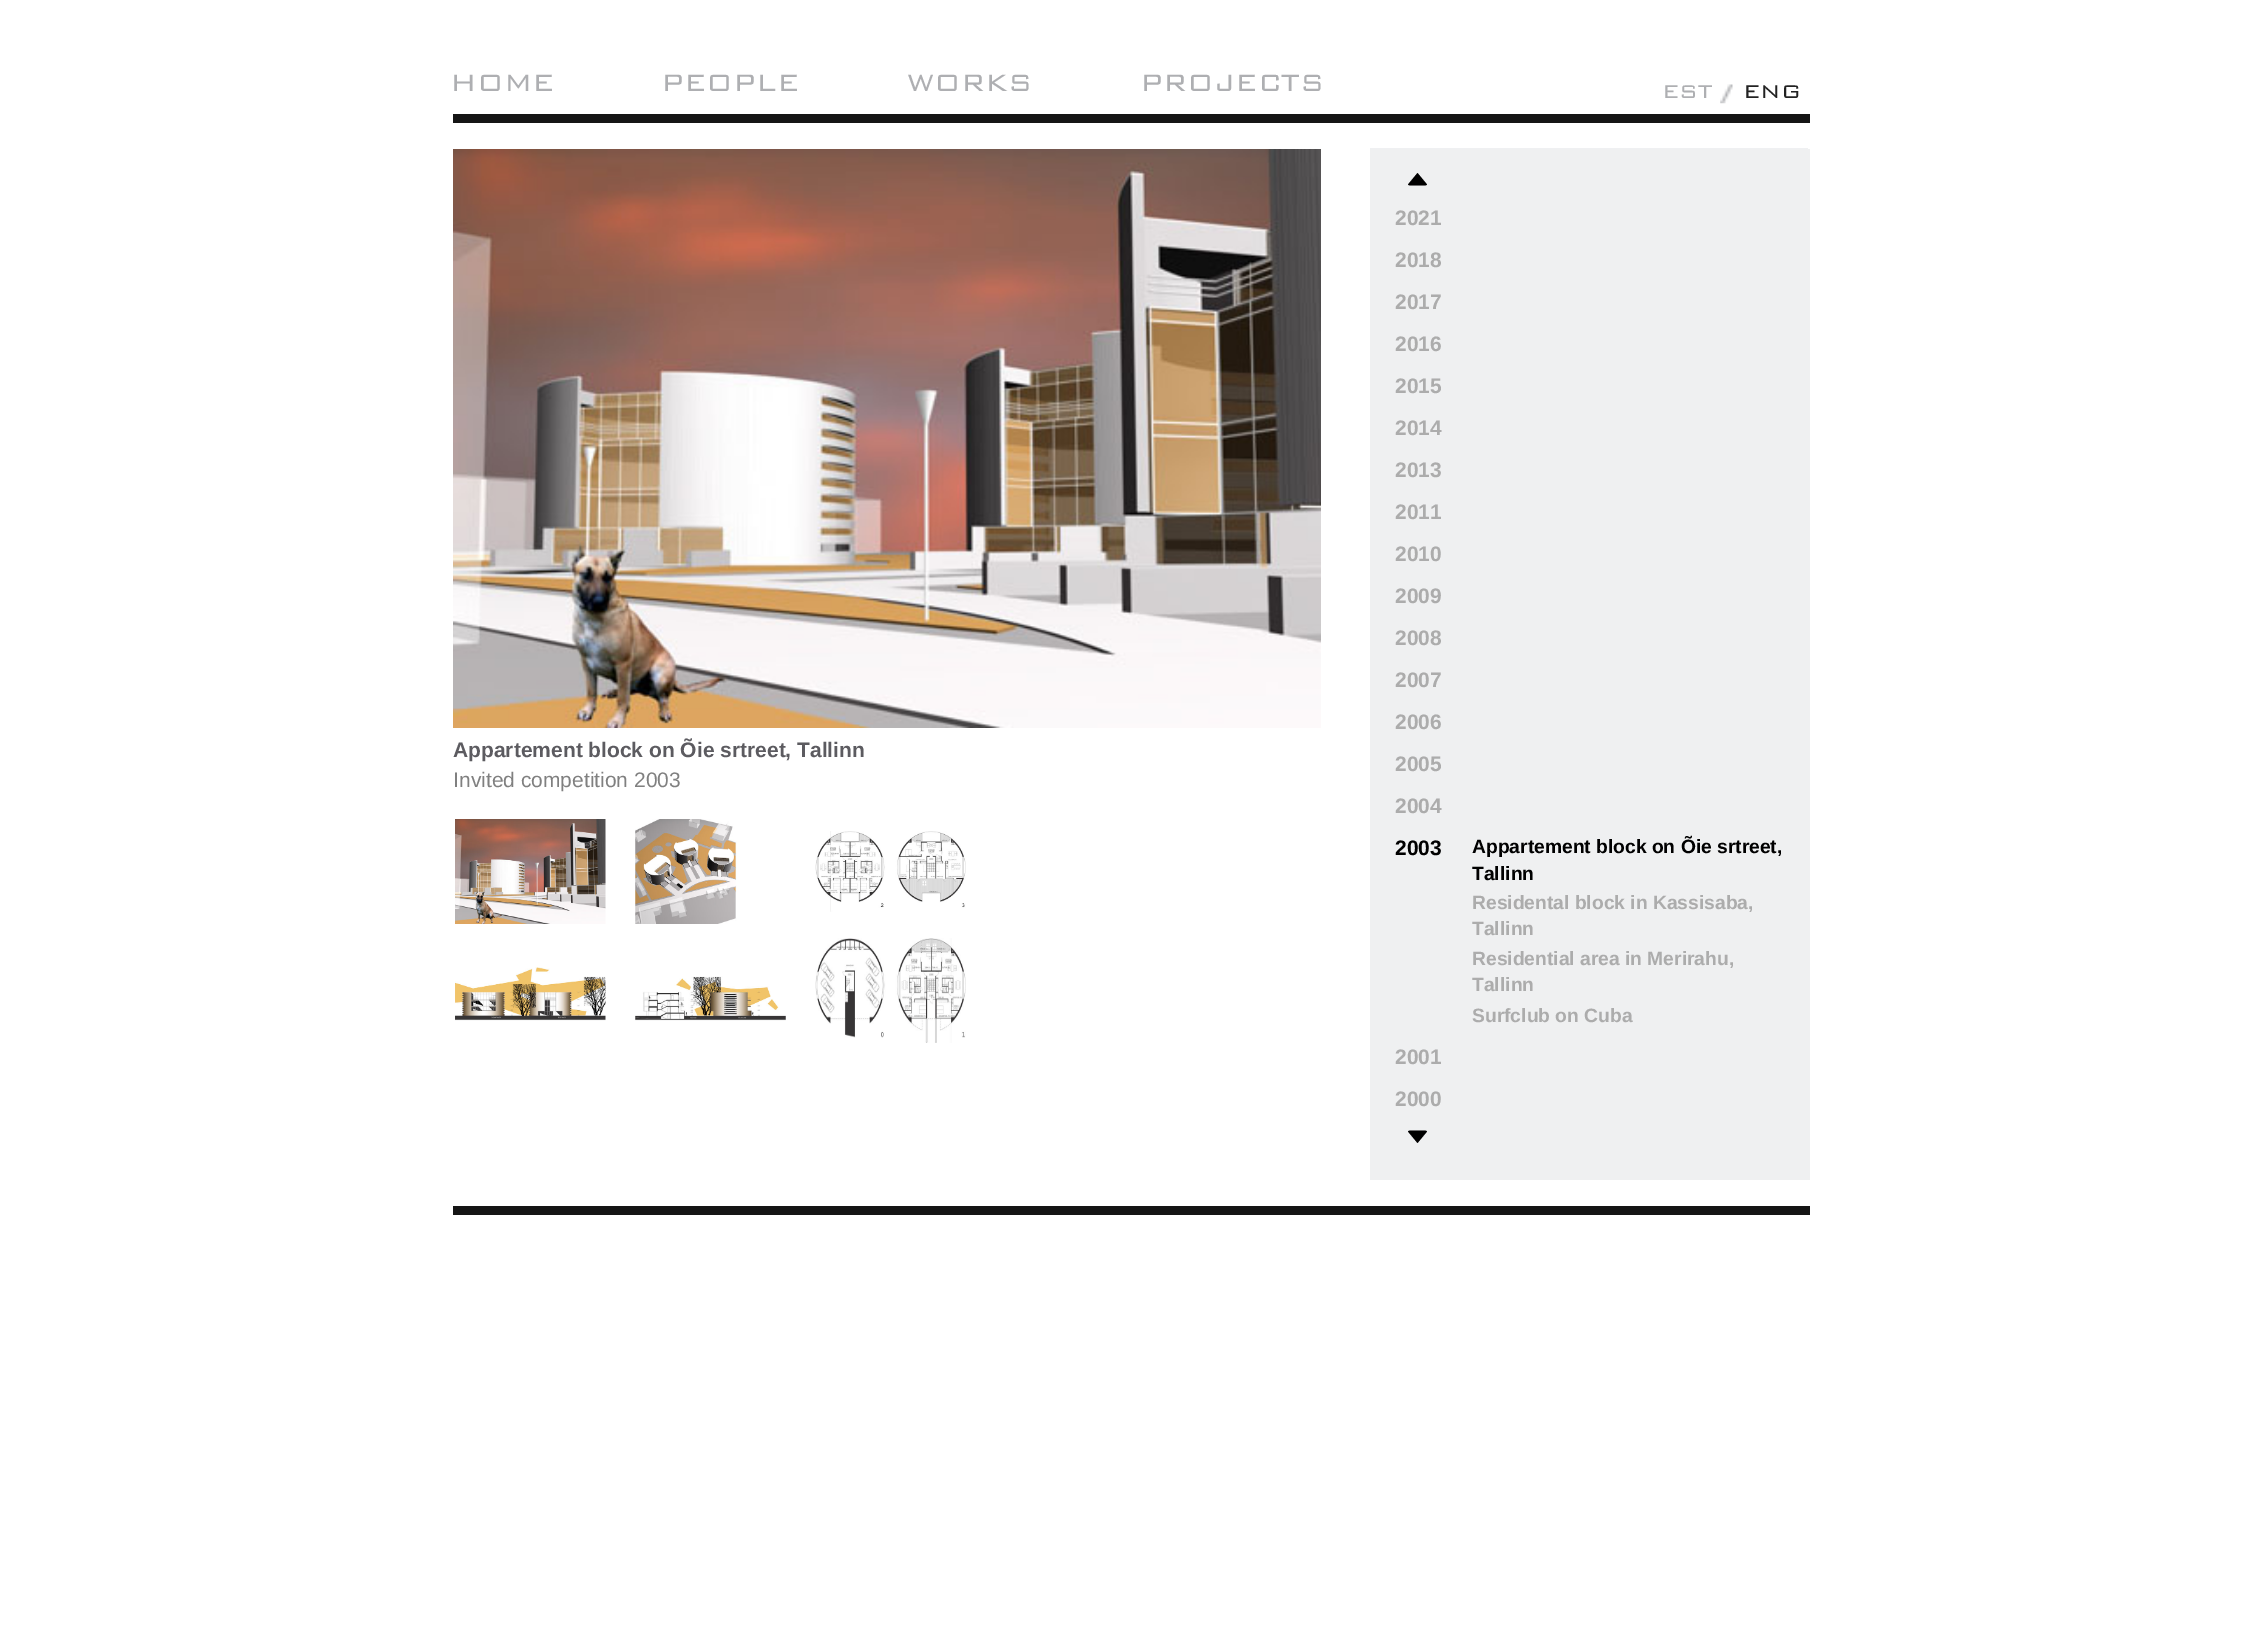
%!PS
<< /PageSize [2262 1648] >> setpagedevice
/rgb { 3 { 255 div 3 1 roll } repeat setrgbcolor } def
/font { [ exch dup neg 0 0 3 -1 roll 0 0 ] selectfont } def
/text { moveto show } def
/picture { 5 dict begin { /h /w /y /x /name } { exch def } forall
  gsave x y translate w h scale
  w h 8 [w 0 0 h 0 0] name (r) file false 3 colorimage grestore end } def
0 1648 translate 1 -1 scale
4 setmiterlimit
255 255 255 rgb
0 0 2262 1648 rectfill
21 21 21 rgb
453 114 1357 9 rectfill
(img_01.rgb) 1720 84 13 20 picture
239 240 242 rgb
1370 148 438 1 rectfill
(img_02.rgb) 453 149 868 579 picture
(img_03.rgb) 455 819 151 105 picture
(img_04.rgb) 635 819 102 105 picture
(img_05.rgb) 815 831 151 81 picture
(img_06.rgb) 455 967 151 54 picture
(img_07.rgb) 635 976 151 45 picture
(img_08.rgb) 815 938 151 105 picture
239 240 241 rgb
1370 149 440 1031 rectfill
0 0 0 rgb
1410.5 185.5 moveto 14 0 rlineto 1 0 2 -0.5 2.5 -1 rcurveto -9.5 -11.5 rlineto -9.5 11.5 rlineto 0.5 0.5 1.5 1 2.5 1 rcurveto closepath fill
1410.5 1130.5 moveto -1 0 -2 0.5 -2.5 1 rcurveto 9.5 11.5 rlineto 9.5 -11.5 rlineto -0.5 -0.5 -1.5 -1 -2.5 -1 rcurveto closepath fill
21 21 21 rgb
453 1206 1357 9 rectfill
/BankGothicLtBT-Light 31.5 font
174 175 178 rgb
(HOME) 450 91 text
(PEOPLE) 661 91 text
(WORKS) 907 91 text
(PROJECTS) 1140 91 text
/BankGothicLtBT-Light 24.5 font
(EST) 1662 98 text
34 34 34 rgb
(ENG) 1743 98 text
/LiberationSans-Bold 21 font
92 91 96 rgb
(Appartement block on Õie srtreet, Tallinn) 453 757 text
/LiberationSans-Regular 21 font
128 128 128 rgb
(Invited competition 2003) 453 787 text
/LiberationSans-Bold 21 font
172 172 172 rgb
(2021) 1395 225 text
(2018) 1395 267 text
(2017) 1395 309 text
(2016) 1395 351 text
(2015) 1395 393 text
(2014) 1395 435 text
(2013) 1395 477 text
(2011) 1395 519 text
(2010) 1395 561 text
(2009) 1395 603 text
(2008) 1395 645 text
(2007) 1395 687 text
(2006) 1395 729 text
(2005) 1395 771 text
(2004) 1395 813 text
0 0 0 rgb
(2003) 1395 855 text
/LiberationSans-Bold 19.25 font
(Appartement block on Õie srtreet,) 1472 853 text
(Tallinn) 1472 880 text
172 172 172 rgb
(Residental block in Kassisaba,) 1472 909 text
(Tallinn) 1472 935 text
(Residential area in Merirahu,) 1472 965 text
(Tallinn) 1472 991 text
(Surfclub on Cuba) 1472 1022 text
/LiberationSans-Bold 21 font
(2001) 1395 1064 text
(2000) 1395 1106 text
showpage
